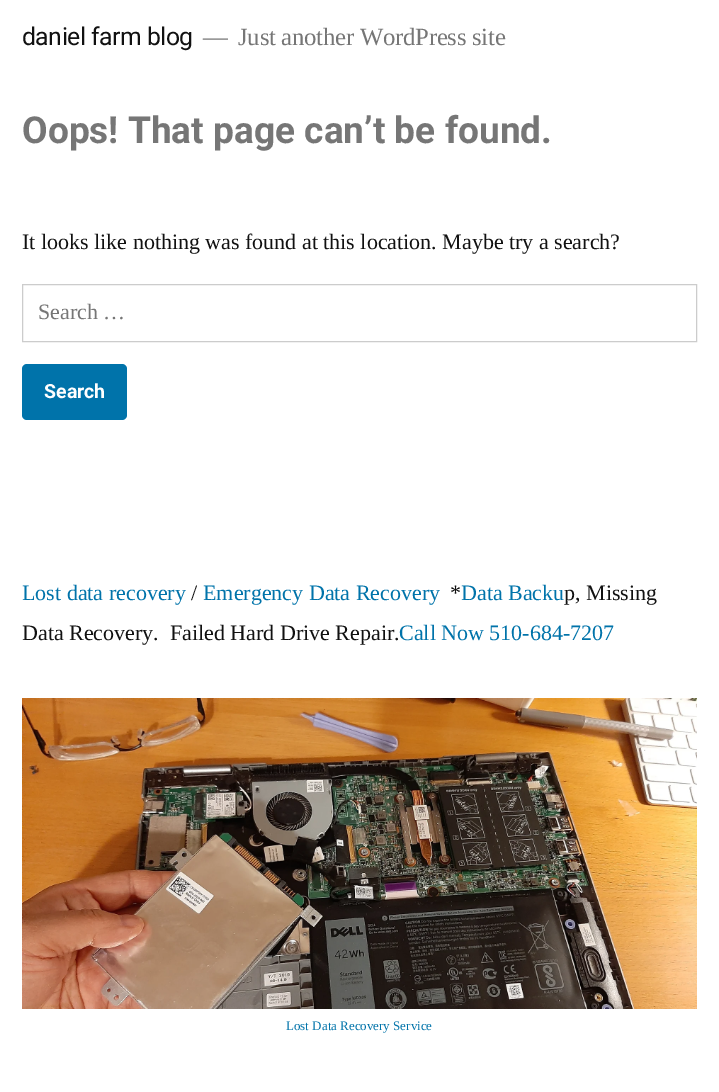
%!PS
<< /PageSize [719 1092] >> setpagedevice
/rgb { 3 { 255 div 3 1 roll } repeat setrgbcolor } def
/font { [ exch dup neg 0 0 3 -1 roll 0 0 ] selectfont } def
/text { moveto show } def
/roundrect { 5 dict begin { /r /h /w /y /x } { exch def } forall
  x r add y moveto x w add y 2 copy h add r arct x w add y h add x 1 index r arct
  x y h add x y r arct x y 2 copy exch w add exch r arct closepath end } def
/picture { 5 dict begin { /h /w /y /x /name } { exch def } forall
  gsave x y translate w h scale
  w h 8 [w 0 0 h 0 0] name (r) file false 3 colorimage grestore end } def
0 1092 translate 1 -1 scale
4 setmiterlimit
255 255 255 rgb
0 0 719 1092 rectfill
204 204 204 rgb
22.5 284.5 674 57 rectstroke
0 115 170 rgb
22 364 105 56 5 roundrect fill
(img_01.rgb) 22 698 675 311 picture
/Roboto-Regular 24.75 font
17 17 17 rgb
22 45 moveto -0.5 0 (daniel farm blog) ashow
/LiberationSerif-Regular 24.75 font
118 118 118 rgb
203 45 moveto -0.25 0 (—) ashow
238 45 moveto -0.25 0 (Just another WordPress site) ashow
/Roboto-Bold 37.1 font
(Oops! That page can’t be found.) 22 143 text
/LiberationSerif-Regular 22 font
17 17 17 rgb
(It looks like nothing was found at this location. Maybe try a search?) 22 249 text
118 118 118 rgb
(Search …) 38 319 text
/Roboto-Bold 19.5 font
255 255 255 rgb
(Search) 44 398 text
/LiberationSerif-Regular 22 font
0 115 170 rgb
(Lost data recovery) 22 600 text
17 17 17 rgb
(/) 191 600 text
0 115 170 rgb
(Emergency Data Recovery) 203 600 text
17 17 17 rgb
(*) 450 600 text
0 115 170 rgb
(Data Backu) 461 600 text
17 17 17 rgb
(p, Missing) 564 600 text
(Data Recovery.  Failed Hard Drive Repair.) 22 640 text
0 115 170 rgb
(Call Now 510-684-7207) 399 640 text
/LiberationSerif-Regular 13 font
(Lost Data Recovery Service) 286 1030 text
showpage
